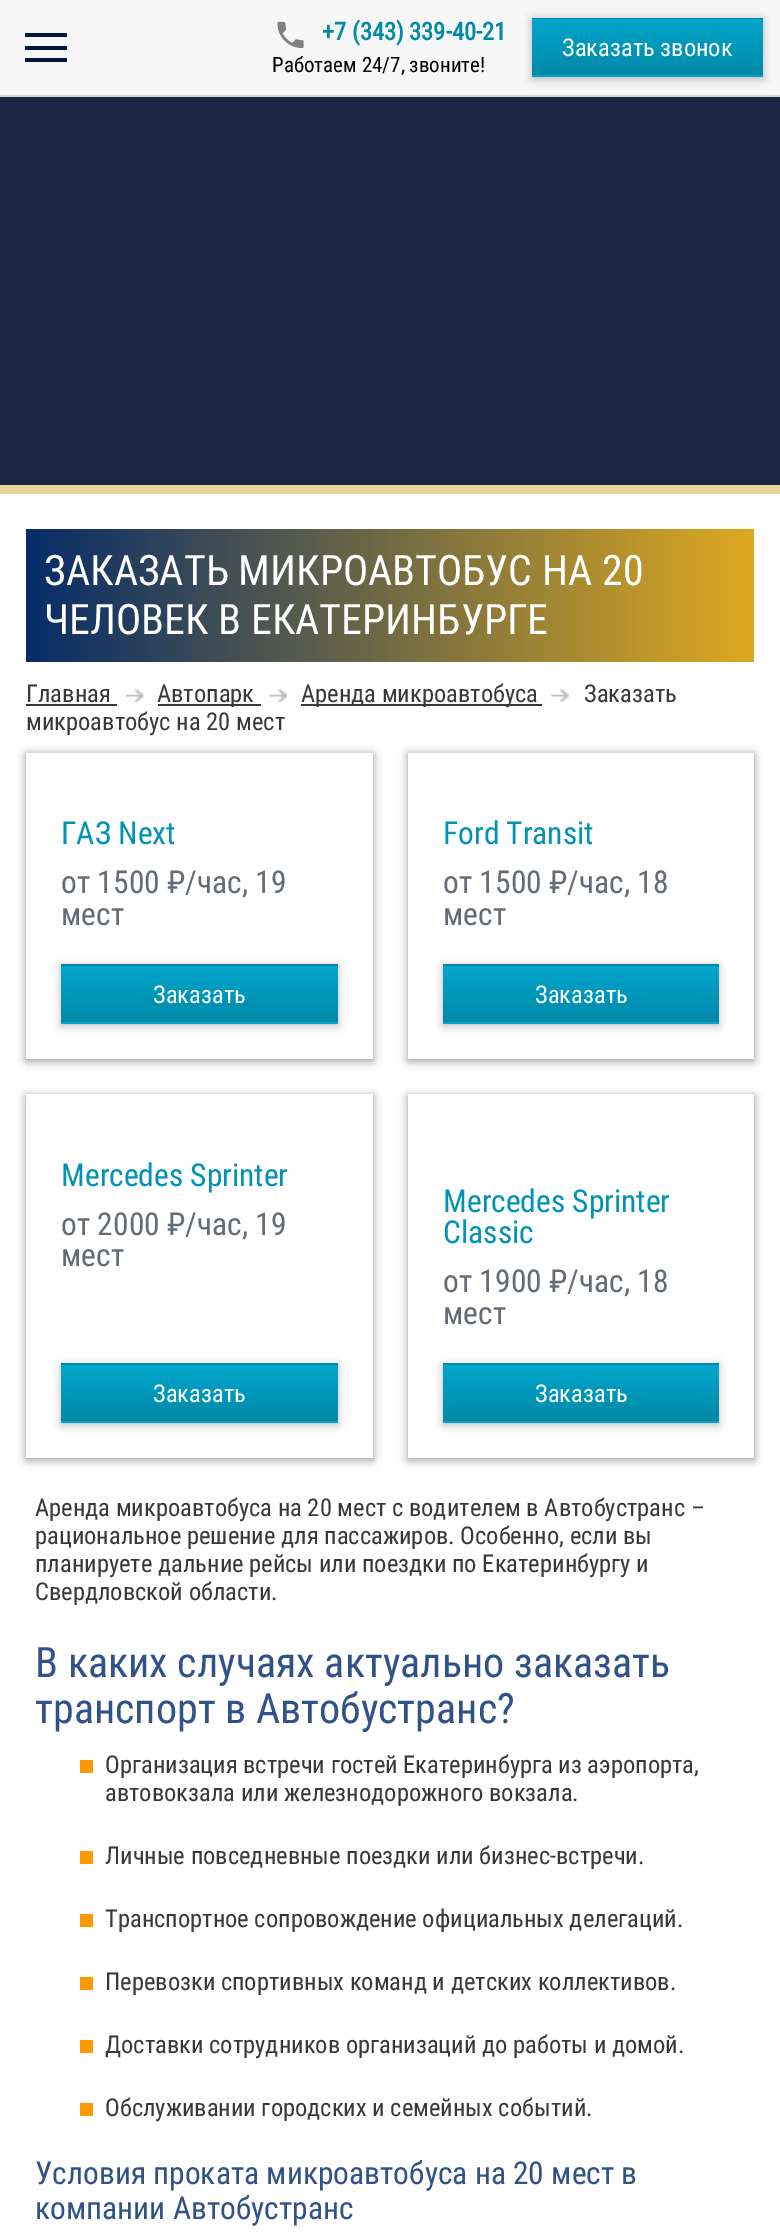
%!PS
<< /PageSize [780 2235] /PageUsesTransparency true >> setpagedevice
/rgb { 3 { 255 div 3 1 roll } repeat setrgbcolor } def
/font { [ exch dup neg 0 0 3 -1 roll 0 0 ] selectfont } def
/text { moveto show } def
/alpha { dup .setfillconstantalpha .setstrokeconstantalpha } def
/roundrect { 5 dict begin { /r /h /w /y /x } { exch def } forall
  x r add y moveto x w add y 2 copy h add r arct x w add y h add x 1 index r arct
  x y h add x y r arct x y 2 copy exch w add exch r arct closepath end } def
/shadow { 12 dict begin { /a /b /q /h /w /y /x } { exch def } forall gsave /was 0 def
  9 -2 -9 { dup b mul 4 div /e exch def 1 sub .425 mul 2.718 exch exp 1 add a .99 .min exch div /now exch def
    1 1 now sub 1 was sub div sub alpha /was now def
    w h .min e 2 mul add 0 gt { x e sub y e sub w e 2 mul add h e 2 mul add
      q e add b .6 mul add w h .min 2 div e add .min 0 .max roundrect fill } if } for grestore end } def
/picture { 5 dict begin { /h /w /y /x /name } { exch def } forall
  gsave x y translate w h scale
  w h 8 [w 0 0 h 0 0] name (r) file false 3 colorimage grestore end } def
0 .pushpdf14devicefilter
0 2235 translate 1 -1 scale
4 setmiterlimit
255 255 255 rgb
0 0 780 2235 rectfill
247 247 247 rgb
0 0 780 95 rectfill
211 211 211 rgb
0 95 780 2 rectfill
4 20 58 rgb
25 46 42 4 rectfill
25 33 42 4 rectfill
25 58 42 4 rectfill
(img_01.rgb) 277 21 27 28 picture
0 0 0 rgb
532 19 231 60 0 4.5 0.25 shadow
gsave 532 18 moveto 231 0 rlineto 0 1 rlineto -231 0 rlineto closepath clip newpath
<< /ShadingType 2 /ColorSpace /DeviceRGB /Coords [648 -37 648 19] /Extend [true true] /Function << /FunctionType 2 /Domain [0 1] /C0 [0 0.651 0.8] /C1 [0 0.537 0.659] /N 1 >> >> shfill grestore
gsave 532 19 moveto 231 0 rlineto 0 56 rlineto -231 0 rlineto closepath clip newpath
<< /ShadingType 2 /ColorSpace /DeviceRGB /Coords [648 19 648 75] /Extend [true true] /Function << /FunctionType 2 /Domain [0 1] /C0 [0 0.651 0.8] /C1 [0 0.537 0.659] /N 1 >> >> shfill grestore
gsave 532 75 moveto 231 0 rlineto 0 2 rlineto -231 0 rlineto closepath clip newpath
<< /ShadingType 2 /ColorSpace /DeviceRGB /Coords [648 75 648 131] /Extend [true true] /Function << /FunctionType 2 /Domain [0 1] /C0 [0 0.651 0.8] /C1 [0 0.537 0.659] /N 1 >> >> shfill grestore
26 37 65 rgb
0 97 780 388 rectfill
232 212 159 rgb
0 485 780 9 rectfill
gsave 26 529 moveto 728 0 rlineto 0 133 rlineto -728 0 rlineto closepath clip newpath
<< /ShadingType 2 /ColorSpace /DeviceRGB /Coords [26 595 754 595] /Extend [true true] /Function << /FunctionType 2 /Domain [0 1] /C0 [0.024 0.173 0.412] /C1 [0.871 0.663 0.125] /N 1 >> >> shfill grestore
56 56 56 rgb
26 704 91 2 rectfill
(img_02.rgb) 126 689 18 13 picture
158 704 103 2 rectfill
(img_03.rgb) 269 689 18 13 picture
301 704 241 2 rectfill
(img_04.rgb) 551 689 18 13 picture
gsave
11 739 moveto 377 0 rlineto 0 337 rlineto -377 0 rlineto closepath 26 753 moveto 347 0 rlineto 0 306 rlineto -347 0 rlineto closepath eoclip newpath
0 0 0 rgb
26 754 347 307 0 4.5 0.4 shadow
grestore
0 0 0 rgb
61 966 277 60 0 4.5 0.25 shadow
gsave 61 964 moveto 277 0 rlineto 0 2 rlineto -277 0 rlineto closepath clip newpath
<< /ShadingType 2 /ColorSpace /DeviceRGB /Coords [200 910 200 966] /Extend [true true] /Function << /FunctionType 2 /Domain [0 1] /C0 [0 0.651 0.8] /C1 [0 0.537 0.659] /N 1 >> >> shfill grestore
gsave 61 966 moveto 277 0 rlineto 0 56 rlineto -277 0 rlineto closepath clip newpath
<< /ShadingType 2 /ColorSpace /DeviceRGB /Coords [200 966 200 1022] /Extend [true true] /Function << /FunctionType 2 /Domain [0 1] /C0 [0 0.651 0.8] /C1 [0 0.537 0.659] /N 1 >> >> shfill grestore
gsave 61 1022 moveto 277 0 rlineto 0 2 rlineto -277 0 rlineto closepath clip newpath
<< /ShadingType 2 /ColorSpace /DeviceRGB /Coords [200 1022 200 1078] /Extend [true true] /Function << /FunctionType 2 /Domain [0 1] /C0 [0 0.651 0.8] /C1 [0 0.537 0.659] /N 1 >> >> shfill grestore
gsave
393 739 moveto 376 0 rlineto 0 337 rlineto -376 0 rlineto closepath 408 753 moveto 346 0 rlineto 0 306 rlineto -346 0 rlineto closepath eoclip newpath
408 754 346 307 0 4.5 0.4 shadow
grestore
443 966 276 60 0 4.5 0.25 shadow
gsave 443 964 moveto 276 0 rlineto 0 2 rlineto -276 0 rlineto closepath clip newpath
<< /ShadingType 2 /ColorSpace /DeviceRGB /Coords [581 910 581 966] /Extend [true true] /Function << /FunctionType 2 /Domain [0 1] /C0 [0 0.651 0.8] /C1 [0 0.537 0.659] /N 1 >> >> shfill grestore
gsave 443 966 moveto 276 0 rlineto 0 56 rlineto -276 0 rlineto closepath clip newpath
<< /ShadingType 2 /ColorSpace /DeviceRGB /Coords [581 966 581 1022] /Extend [true true] /Function << /FunctionType 2 /Domain [0 1] /C0 [0 0.651 0.8] /C1 [0 0.537 0.659] /N 1 >> >> shfill grestore
gsave 443 1022 moveto 276 0 rlineto 0 2 rlineto -276 0 rlineto closepath clip newpath
<< /ShadingType 2 /ColorSpace /DeviceRGB /Coords [581 1022 581 1078] /Extend [true true] /Function << /FunctionType 2 /Domain [0 1] /C0 [0 0.651 0.8] /C1 [0 0.537 0.659] /N 1 >> >> shfill grestore
gsave
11 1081 moveto 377 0 rlineto 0 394 rlineto -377 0 rlineto closepath 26 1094 moveto 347 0 rlineto 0 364 rlineto -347 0 rlineto closepath eoclip newpath
26 1096 347 364 0 4.5 0.4 shadow
grestore
61 1365 277 60 0 4.5 0.25 shadow
gsave 61 1363 moveto 277 0 rlineto 0 2 rlineto -277 0 rlineto closepath clip newpath
<< /ShadingType 2 /ColorSpace /DeviceRGB /Coords [200 1309 200 1365] /Extend [true true] /Function << /FunctionType 2 /Domain [0 1] /C0 [0 0.651 0.8] /C1 [0 0.537 0.659] /N 1 >> >> shfill grestore
gsave 61 1365 moveto 277 0 rlineto 0 56 rlineto -277 0 rlineto closepath clip newpath
<< /ShadingType 2 /ColorSpace /DeviceRGB /Coords [200 1365 200 1421] /Extend [true true] /Function << /FunctionType 2 /Domain [0 1] /C0 [0 0.651 0.8] /C1 [0 0.537 0.659] /N 1 >> >> shfill grestore
gsave 61 1421 moveto 277 0 rlineto 0 2 rlineto -277 0 rlineto closepath clip newpath
<< /ShadingType 2 /ColorSpace /DeviceRGB /Coords [200 1421 200 1477] /Extend [true true] /Function << /FunctionType 2 /Domain [0 1] /C0 [0 0.651 0.8] /C1 [0 0.537 0.659] /N 1 >> >> shfill grestore
gsave
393 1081 moveto 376 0 rlineto 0 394 rlineto -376 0 rlineto closepath 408 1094 moveto 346 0 rlineto 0 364 rlineto -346 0 rlineto closepath eoclip newpath
408 1096 346 364 0 4.5 0.4 shadow
grestore
443 1365 276 60 0 4.5 0.25 shadow
gsave 443 1363 moveto 276 0 rlineto 0 2 rlineto -276 0 rlineto closepath clip newpath
<< /ShadingType 2 /ColorSpace /DeviceRGB /Coords [581 1309 581 1365] /Extend [true true] /Function << /FunctionType 2 /Domain [0 1] /C0 [0 0.651 0.8] /C1 [0 0.537 0.659] /N 1 >> >> shfill grestore
gsave 443 1365 moveto 276 0 rlineto 0 56 rlineto -276 0 rlineto closepath clip newpath
<< /ShadingType 2 /ColorSpace /DeviceRGB /Coords [581 1365 581 1421] /Extend [true true] /Function << /FunctionType 2 /Domain [0 1] /C0 [0 0.651 0.8] /C1 [0 0.537 0.659] /N 1 >> >> shfill grestore
gsave 443 1421 moveto 276 0 rlineto 0 2 rlineto -276 0 rlineto closepath clip newpath
<< /ShadingType 2 /ColorSpace /DeviceRGB /Coords [581 1421 581 1477] /Extend [true true] /Function << /FunctionType 2 /Domain [0 1] /C0 [0 0.651 0.8] /C1 [0 0.537 0.659] /N 1 >> >> shfill grestore
255 153 1 rgb
80 1760 13 13 rectfill
80 1851 13 13 rectfill
80 1914 13 13 rectfill
80 1977 13 13 rectfill
80 2040 13 13 rectfill
80 2103 13 13 rectfill
/RobotoCondensed-Bold 24.5 font
0 137 168 rgb
(+7 \(343\) 339-40-21) 322 40 text
/RobotoCondensed-Regular 21 font
0 0 0 rgb
(Работаем 24/7, звоните!) 272 72 text
/RobotoCondensed-Regular 24.5 font
255 255 255 rgb
(Заказать звонок) 562 56 text
/RobotoCondensed-Regular 42 font
(ЗАКАЗАТЬ МИКРОАВТОБУС НА 20) 44 585 text
(ЧЕЛОВЕК В ЕКАТЕРИНБУРГЕ) 44 634 text
/RobotoCondensed-Regular 24.5 font
56 56 56 rgb
(Главная) 26 702 text
(Автопарк) 157 702 text
(Аренда микроавтобуса) 301 702 text
(Заказать) 584 702 text
(микроавтобус на 20 мест) 26 730 text
/RobotoCondensed-Regular 31.5 font
0 147 181 rgb
(ГАЗ Next) 61 844 text
100 107 116 rgb
(от 1500 ₽/час, 19) 61 893 text
(мест) 61 925 text
/RobotoCondensed-Regular 24.5 font
255 255 255 rgb
(Заказать) 153 1003 text
/RobotoCondensed-Regular 31.5 font
0 147 181 rgb
(Ford Transit) 443 844 text
100 107 116 rgb
(от 1500 ₽/час, 18) 443 893 text
(мест) 443 925 text
/RobotoCondensed-Regular 24.5 font
255 255 255 rgb
(Заказать) 535 1003 text
/RobotoCondensed-Regular 31.5 font
0 147 181 rgb
(Mercedes Sprinter) 61 1186 text
100 107 116 rgb
(от 2000 ₽/час, 19) 61 1235 text
(мест) 61 1266 text
/RobotoCondensed-Regular 24.5 font
255 255 255 rgb
(Заказать) 153 1402 text
/RobotoCondensed-Regular 31.5 font
0 147 181 rgb
(Mercedes Sprinter) 443 1212 text
(Classic) 443 1243 text
100 107 116 rgb
(от 1900 ₽/час, 18) 443 1292 text
(мест) 443 1324 text
/RobotoCondensed-Regular 24.5 font
255 255 255 rgb
(Заказать) 535 1402 text
56 56 56 rgb
(Аренда микроавтобуса на 20 мест с водителем в Автобустранс –) 35 1516 text
(рациональное решение для пассажиров. Особенно, если вы) 35 1544 text
(планируете дальние рейсы или поездки по Екатеринбургу и) 35 1572 text
(Свердловской области.) 35 1600 text
/RobotoCondensed-Regular 42 font
48 82 137 rgb
(В каких случаях актуально заказать) 35 1677 text
(транспорт в Автобустранс?) 35 1723 text
/RobotoCondensed-Regular 24.5 font
56 56 56 rgb
(Организация встречи гостей Екатеринбурга из аэропорта,) 105 1773 text
(автовокзала или железнодорожного вокзала.) 105 1801 text
(Личные повседневные поездки или бизнес-встречи.) 105 1864 text
(Транспортное сопровождение официальных делегаций.) 105 1927 text
(Перевозки спортивных команд и детских коллективов.) 105 1990 text
(Доставки сотрудников организаций до работы и домой.) 105 2053 text
(Обслуживании городских и семейных событий.) 105 2116 text
/RobotoCondensed-Regular 31.5 font
48 82 137 rgb
(Условия проката микроавтобуса на 20 мест в) 35 2184 text
(компании Автобустранс) 35 2219 text
.poppdf14devicefilter showpage
